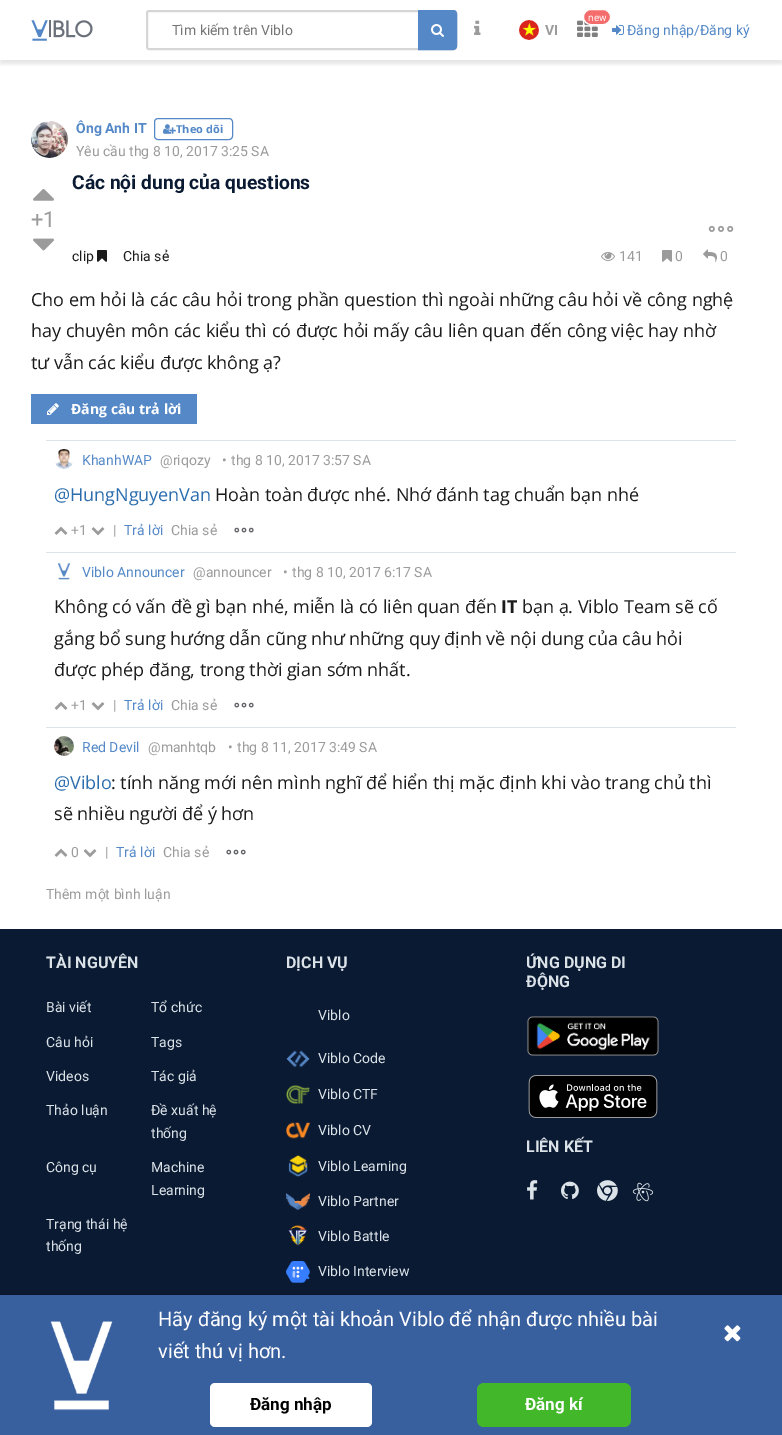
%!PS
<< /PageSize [782 1435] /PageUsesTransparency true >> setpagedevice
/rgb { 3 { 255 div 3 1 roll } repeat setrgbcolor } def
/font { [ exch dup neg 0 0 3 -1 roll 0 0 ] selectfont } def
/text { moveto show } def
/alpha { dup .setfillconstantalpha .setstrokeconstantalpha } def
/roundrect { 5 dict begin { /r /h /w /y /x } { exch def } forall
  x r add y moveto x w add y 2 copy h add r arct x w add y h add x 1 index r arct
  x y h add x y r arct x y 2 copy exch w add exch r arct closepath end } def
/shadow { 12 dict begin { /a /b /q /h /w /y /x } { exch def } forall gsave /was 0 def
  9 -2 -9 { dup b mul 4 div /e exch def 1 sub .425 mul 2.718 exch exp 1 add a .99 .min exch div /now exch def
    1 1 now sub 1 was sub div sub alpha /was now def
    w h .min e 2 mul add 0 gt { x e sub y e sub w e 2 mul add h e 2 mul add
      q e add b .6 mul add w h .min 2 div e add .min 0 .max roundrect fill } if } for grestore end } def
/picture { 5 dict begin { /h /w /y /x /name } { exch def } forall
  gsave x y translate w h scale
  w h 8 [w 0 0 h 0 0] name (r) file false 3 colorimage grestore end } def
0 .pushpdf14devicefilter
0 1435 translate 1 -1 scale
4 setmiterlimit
255 255 255 rgb
0 0 782 1435 rectfill
gsave
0 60 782 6 rectclip
0 0 0 rgb
0 4 782 60 0 2 0.1 shadow
grestore
(img_01.rgb) 31 20 62 21 picture
214 214 215 rgb
2 setlinewidth
147 11 309 38 2 roundrect stroke
84 136 199 rgb
418.5 10.5 moveto 34.5 0 rlineto 2 0 3.5 1.5 3.5 3.5 rcurveto 0 32 rlineto 0 2 -1.5 3.5 -3.5 3.5 rcurveto -34.5 0 rlineto closepath gsave fill grestore
1 setlinewidth
stroke
(img_02.rgb) 431 24 13 13 picture
(img_03.rgb) 474 20 7 15 picture
(img_04.rgb) 577 20 21 17 picture
245 108 108 rgb
583.5 9.5 27 15 7.5 roundrect gsave fill grestore
255 255 255 rgb
stroke
(img_05.rgb) 519 20 20 20 picture
(img_06.rgb) 612 25 12 10 picture
(img_07.rgb) 31 121 37 37 picture
84 136 199 rgb
154.5 118.5 78 21 3.5 roundrect stroke
(img_08.rgb) 163 124 13 10 picture
(img_09.rgb) 33 189 21 12 picture
(img_10.rgb) 33 238 21 13 picture
(img_11.rgb) 708 225 26 7 picture
(img_12.rgb) 97 250 10 12 picture
(img_13.rgb) 601 252 14 9 picture
(img_14.rgb) 662 250 10 12 picture
(img_15.rgb) 703 249 14 13 picture
31 394 166 30 rectfill
(img_16.rgb) 47 403 12 12 picture
219 227 232 rgb
46 440 690 1 rectfill
46 552 690 1 rectfill
(img_17.rgb) 55 449 18 20 picture
(img_18.rgb) 54 526 14 9 picture
(img_19.rgb) 91 527 14 9 picture
(img_20.rgb) 234 527 20 6 picture
46 727 690 1 rectfill
(img_21.rgb) 57 562 13 18 picture
(img_18.rgb) 54 701 14 9 picture
(img_19.rgb) 91 702 14 9 picture
(img_20.rgb) 234 702 20 6 picture
(img_22.rgb) 54 736 20 20 picture
(img_18.rgb) 54 848 14 9 picture
(img_19.rgb) 83 849 14 9 picture
(img_20.rgb) 226 849 20 6 picture
11 26 51 rgb
0 929 782 366 rectfill
(img_23.rgb) 286 1050 24 18 picture
(img_24.rgb) 286 1085 24 19 picture
(img_25.rgb) 286 1122 24 17 picture
(img_26.rgb) 288 1155 20 22 picture
(img_27.rgb) 286 1193 24 17 picture
(img_28.rgb) 288 1225 20 21 picture
(img_29.rgb) 286 1261 24 22 picture
(img_30.rgb) 527 1016 132 40 picture
(img_31.rgb) 528 1075 130 43 picture
(img_32.rgb) 527 1180 11 20 picture
(img_33.rgb) 561 1181 18 18 picture
(img_34.rgb) 597 1180 21 21 picture
(img_35.rgb) 632 1182 22 20 picture
0 0 0 rgb
-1 1293 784 142 0 2.5 0.15 shadow
57 96 158 rgb
0 1295 782 140 rectfill
(img_36.rgb) 50 1321 63 90 picture
255 255 255 rgb
210 1383 162 44 5 roundrect fill
66 183 42 rgb
477 1383 154 44 7 roundrect fill
(img_37.rgb) 724 1325 17 17 picture
/Roboto-Regular 14 font
117 117 117 rgb
(Tìm kiếm trên Viblo) 172 35 text
/Roboto-Regular 10 font
255 255 255 rgb
(new) 588 21 text
/Roboto-Bold 14 font
155 155 155 rgb
(VI) 545 35 text
/Roboto-Regular 14 font
84 136 199 rgb
(Đăng nhập/Đăng ký) 627 35 text
/Roboto-Bold 14 font
(Ông Anh IT) 76 133 text
/OpenSans-Bold 11 font
(Theo dõi) 176 133 text
/Roboto-Regular 14 font
155 155 155 rgb
(Yêu cầu thg 8 10, 2017 3:25 SA) 76 156 text
/Roboto-Regular 22 font
(+1) 31 227 text
/Roboto-Bold 19.25 font
11 26 51 rgb
(Các nội dung của questions) 72 189 text
/Roboto-Regular 14 font
27 27 27 rgb
(clip) 72 261 text
(Chia sẻ) 123 261 text
155 155 155 rgb
(141) 619 261 text
(0) 675 261 text
(0) 720 261 text
/OpenSans-Regular 18 font
27 27 27 rgb
31 306 moveto -0.05 0 (Cho em hỏi là các câu hỏi trong phần question thì ngoài những câu hỏi về công nghệ) ashow
31 337 moveto -0.05 0 (hay chuyên môn các kiểu thì có được hỏi mấy câu liên quan đến công việc hay nhờ) ashow
31 369 moveto -0.05 0 (tư vẫn các kiểu được không ạ?) ashow
/OpenSans-Bold 14 font
255 255 255 rgb
(Đăng câu trả lời) 71 414 text
/Roboto-Regular 14 font
84 136 199 rgb
(KhanhWAP) 82 465 text
155 155 155 rgb
(@riqozy) 160 465 text
(•) 222 465 text
(thg 8 10, 2017 3:57 SA) 231 465 text
/OpenSans-Regular 18 font
43 109 173 rgb
54 501 moveto -0.05 0 (@HungNguyenVan) ashow
27 27 27 rgb
215 501 moveto -0.05 0 (Hoàn toàn được nhé. Nhớ đánh tag chuẩn bạn nhé) ashow
/Roboto-Regular 14 font
155 155 155 rgb
(+1) 71 535 text
(|) 113 535 text
84 136 199 rgb
(Trả lời) 124 535 text
155 155 155 rgb
(Chia sẻ) 171 535 text
84 136 199 rgb
(Viblo Announcer) 82 577 text
155 155 155 rgb
(@announcer) 193 577 text
(•) 283 577 text
(thg 8 10, 2017 6:17 SA) 292 577 text
/OpenSans-Regular 18 font
27 27 27 rgb
54 613 moveto -0.05 0 (Không có vấn đề gì bạn nhé, miễn là có liên quan đến) ashow
/OpenSans-Bold 18 font
501 613 moveto -0.05 0 (IT) ashow
/OpenSans-Regular 18 font
522 613 moveto -0.05 0 (bạn ạ. Viblo Team sẽ cố) ashow
54 645 moveto -0.05 0 (gắng bổ sung hướng dẫn cũng như những quy định về nội dung của câu hỏi) ashow
54 676 moveto -0.05 0 (được phép đăng, trong thời gian sớm nhất.) ashow
/Roboto-Regular 14 font
155 155 155 rgb
(+1) 71 710 text
(|) 113 710 text
84 136 199 rgb
(Trả lời) 124 710 text
155 155 155 rgb
(Chia sẻ) 171 710 text
84 136 199 rgb
(Red Devil) 82 752 text
155 155 155 rgb
(@manhtqb) 148 752 text
(•) 228 752 text
(thg 8 11, 2017 3:49 SA) 237 752 text
/OpenSans-Regular 18 font
43 109 173 rgb
54 789 moveto -0.05 0 (@Viblo) ashow
27 27 27 rgb
111 789 moveto -0.05 0 (: tính năng mới nên mình nghĩ để hiển thị mặc định khi vào trang chủ thì) ashow
54 820 moveto -0.05 0 (sẽ nhiều người để ý hơn) ashow
/Roboto-Regular 14 font
155 155 155 rgb
(0) 71 857 text
(|) 105 857 text
84 136 199 rgb
(Trả lời) 116 857 text
155 155 155 rgb
(Chia sẻ) 163 857 text
(Thêm một bình luận) 46 899 text
/Roboto-Bold 16 font
219 227 232 rgb
(TÀI NGUYÊN) 46 968 text
/Roboto-Regular 14 font
(Bài viết) 46 1012 text
(Tổ chức) 151 1012 text
(Câu hỏi) 46 1047 text
(Tags) 151 1047 text
(Videos) 46 1081 text
(Tác giả) 151 1081 text
(Thảo luận) 46 1115 text
(Đề xuất hệ) 151 1115 text
(thống) 151 1138 text
(Công cụ) 46 1172 text
(Machine) 151 1172 text
(Learning) 151 1195 text
(Trạng thái hệ) 46 1229 text
(thống) 46 1251 text
/Roboto-Bold 16 font
(DỊCH VỤ) 286 968 text
/Roboto-Regular 14 font
(Viblo) 318 1020 text
(Viblo Code) 318 1063 text
(Viblo CTF) 318 1099 text
(Viblo CV) 318 1135 text
(Viblo Learning) 318 1171 text
(Viblo Partner) 318 1206 text
(Viblo Battle) 318 1241 text
(Viblo Interview) 318 1276 text
/Roboto-Bold 16 font
(ỨNG DỤNG DI) 526 968 text
(ĐỘNG) 526 987 text
(LIÊN KẾT) 526 1152 text
/Roboto-Regular 20 font
255 255 255 rgb
(Hãy đăng ký một tài khoản Viblo để nhận được nhiều bài) 158 1326 text
(viết thú vị hơn.) 158 1358 text
/Roboto-Bold 17 font
0 0 0 rgb
(Đăng nhập) 250 1410 text
255 255 255 rgb
(Đăng kí) 525 1410 text
.poppdf14devicefilter showpage
